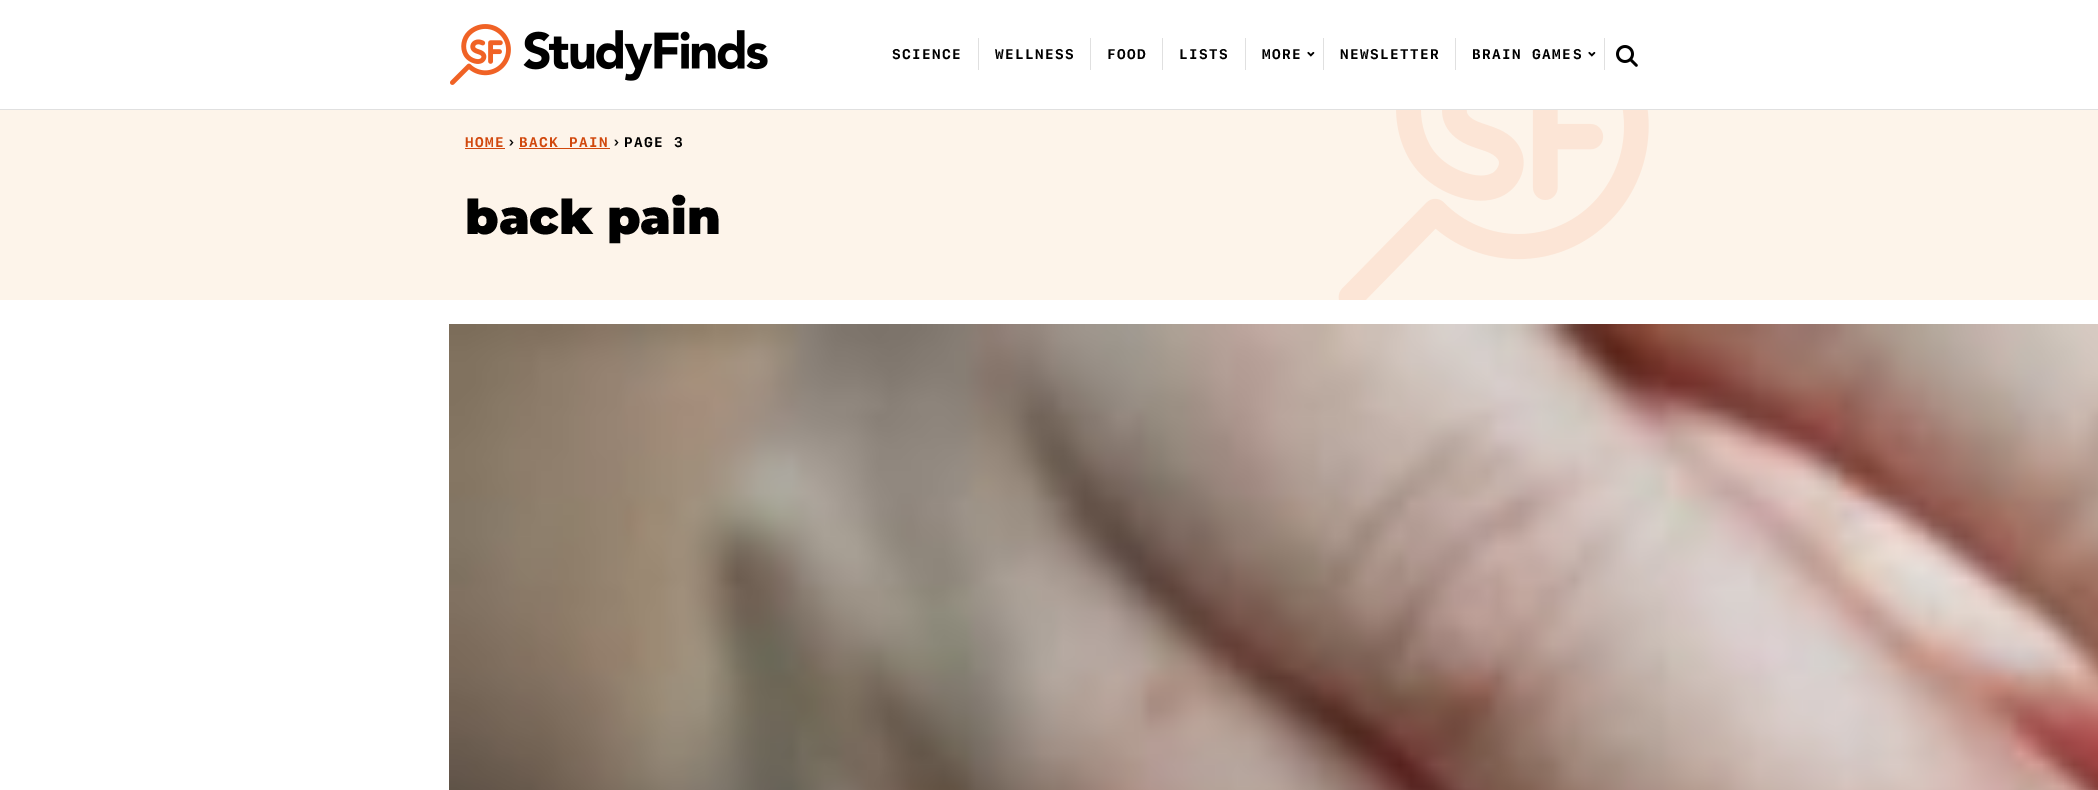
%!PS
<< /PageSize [2098 790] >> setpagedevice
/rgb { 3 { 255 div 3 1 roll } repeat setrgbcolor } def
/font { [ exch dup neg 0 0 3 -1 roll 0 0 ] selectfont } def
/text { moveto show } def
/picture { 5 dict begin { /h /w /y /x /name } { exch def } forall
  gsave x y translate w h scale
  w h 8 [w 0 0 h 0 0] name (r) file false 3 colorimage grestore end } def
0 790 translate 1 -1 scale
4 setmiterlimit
255 255 255 rgb
0 0 2098 790 rectfill
224 224 224 rgb
0 109 2098 1 rectfill
(img_01.rgb) 450 24 318 61 picture
978 38 1 32 rectfill
1090 38 1 32 rectfill
1162 38 1 32 rectfill
1245 38 1 32 rectfill
(img_02.rgb) 1307 51 8 6 picture
1323 38 1 32 rectfill
1455 38 1 32 rectfill
(img_02.rgb) 1588 51 8 6 picture
1604 38 1 32 rectfill
(img_03.rgb) 1616 45 22 22 picture
253 244 234 rgb
0 110 2098 190 rectfill
209 72 13 rgb
465 148 40 1 rectfill
519 148 91 1 rectfill
(img_04.rgb) 1338 110 311 190 picture
(img_05.rgb) 449 324 1649 466 picture
/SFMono-Bold 14 font
0 0 0 rgb
892 59 moveto 1.4 0 (SCIENCE) ashow
995 59 moveto 1.4 0 (WELLNESS) ashow
1107 59 moveto 1.4 0 (FOOD) ashow
1179 59 moveto 1.4 0 (LISTS) ashow
1262 59 moveto 1.4 0 (MORE) ashow
1340 59 moveto 1.4 0 (NEWSLETTER) ashow
1472 59 moveto 1.4 0 (BRAIN GAMES) ashow
209 72 13 rgb
465 147 moveto 1.4 0 (HOME) ashow
0 0 0 rgb
507 147 moveto 1.4 0 (›) ashow
209 72 13 rgb
519 147 moveto 1.4 0 (BACK PAIN) ashow
0 0 0 rgb
612 147 moveto 1.4 0 (›) ashow
624 147 moveto 1.4 0 (PAGE 3) ashow
/Montserrat-Black 48 font
(back pain) 465 234 text
showpage
